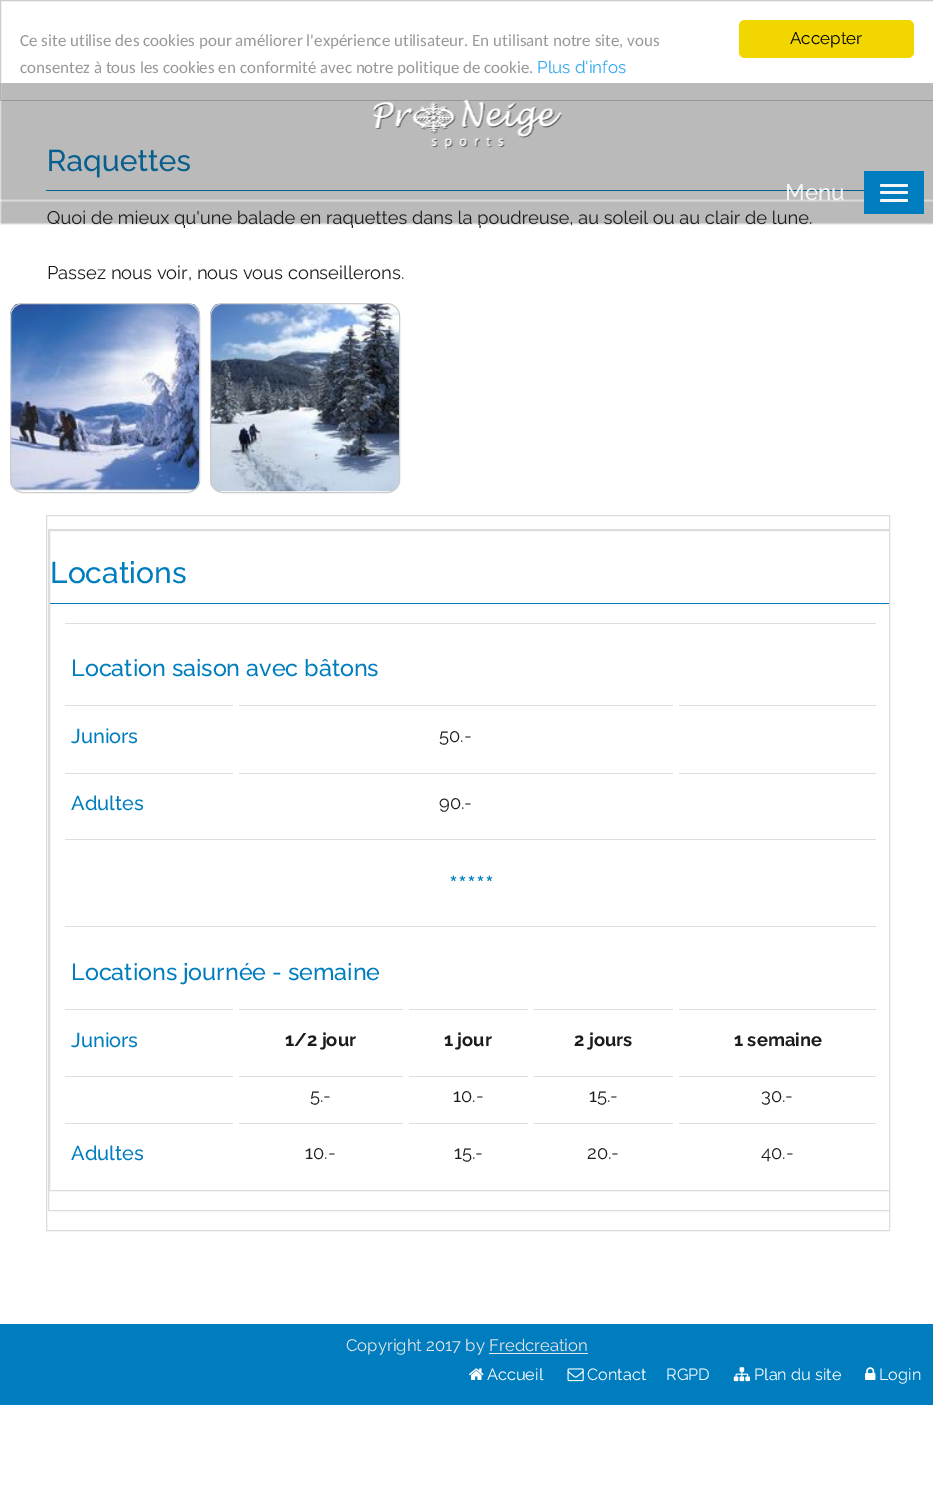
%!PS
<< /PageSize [933 1487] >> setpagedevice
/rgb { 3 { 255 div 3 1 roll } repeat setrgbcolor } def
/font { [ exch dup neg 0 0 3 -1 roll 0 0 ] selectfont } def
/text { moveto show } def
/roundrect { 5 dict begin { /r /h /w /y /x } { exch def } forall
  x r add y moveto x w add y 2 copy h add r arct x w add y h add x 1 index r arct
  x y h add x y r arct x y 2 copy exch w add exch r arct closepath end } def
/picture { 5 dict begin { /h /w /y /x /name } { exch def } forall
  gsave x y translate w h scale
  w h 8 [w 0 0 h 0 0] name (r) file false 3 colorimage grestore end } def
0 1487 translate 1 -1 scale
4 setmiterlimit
255 255 255 rgb
0 0 933 1487 rectfill
204 204 204 rgb
0.5 0.5 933 100 rectstroke
241 214 0 rgb
739 20 175 38 6 roundrect fill
0 125 191 rgb
46 190 818 1 rectfill
(img_01.rgb) 10 303 190 189 picture
204 204 204 rgb
10.5 303.5 189 189 12.5 roundrect stroke
(img_02.rgb) 210 303 190 189 picture
210.5 303.5 189 189 12.5 roundrect stroke
221 221 221 rgb
46.5 515.5 843 715 rectstroke
gsave
48 516 841 714 rectclip
48.5 529.5 842 681 rectstroke
grestore
gsave
49 530 840 680 rectclip
49.5 530.5 843 660 rectstroke
grestore
0 125 191 rgb
50 603 839 1 rectfill
221 221 221 rgb
65 623 811 1 rectfill
679 705 197 1 rectfill
65 705 168 1 rectfill
239 705 434 1 rectfill
679 773 197 1 rectfill
65 773 168 1 rectfill
239 773 434 1 rectfill
65 839 811 1 rectfill
65 926 811 1 rectfill
65 1009 168 1 rectfill
239 1009 164 1 rectfill
409 1009 119 1 rectfill
534 1009 139 1 rectfill
679 1009 197 1 rectfill
65 1076 168 1 rectfill
239 1076 164 1 rectfill
409 1076 119 1 rectfill
534 1076 139 1 rectfill
679 1076 197 1 rectfill
65 1123 168 1 rectfill
239 1123 164 1 rectfill
409 1123 119 1 rectfill
534 1123 139 1 rectfill
679 1123 197 1 rectfill
0 125 191 rgb
0 1324 933 81 rectfill
232 232 232 rgb
489 1353 99 1 rectfill
(img_05.rgb) 469 1368 15 12 picture
(img_06.rgb) 567 1368 17 14 picture
(img_07.rgb) 733 1367 17 15 picture
(img_08.rgb) 865 1367 11 13 picture
/Carlito-Regular 17 font
153 153 153 rgb
(Ce site utilise des cookies pour améliorer l'expérience utilisateur. En utilisant notre site, vous) 20 46 text
(consentez à tous les cookies en conformité avec notre politique de cookie.) 20 73 text
/Raleway-Regular 17 font
49 168 240 rgb
(Plus d'infos) 537 73 text
0 0 0 rgb
(Accepter) 790 44 text
/Raleway-Medium 30 font
0 125 191 rgb
(Raquettes) 47 171 text
/Raleway-Regular 18.35 font
28 28 28 rgb
(Quoi de mieux qu'une balade en raquettes dans la poudreuse, au soleil ou au clair de lune.) 47 224 text
(Passez nous voir, nous vous conseillerons.) 47 279 text
/Raleway-Medium 30 font
0 125 191 rgb
(Locations) 50 583 text
/Raleway-Medium 23.3 font
(Location saison avec bâtons) 71 676 text
/Raleway-Medium 20 font
(Juniors) 71 743 text
/Raleway-Regular 18.35 font
28 28 28 rgb
(50.-) 439 742 text
/Raleway-Medium 20 font
0 125 191 rgb
(Adultes) 71 810 text
/Raleway-Regular 18.35 font
28 28 28 rgb
(90.-) 439 809 text
/Raleway-Medium 27 font
0 125 191 rgb
(*****) 449 895 text
/Raleway-Medium 23.3 font
(Locations journée - semaine) 71 980 text
/Raleway-Medium 20 font
(Juniors) 71 1047 text
/Raleway-Bold 18.35 font
28 28 28 rgb
(1/2 jour) 285 1046 text
(1 jour) 444 1046 text
(2 jours) 574 1046 text
(1 semaine) 734 1046 text
/Raleway-Regular 18.35 font
(5.-) 310 1102 text
(10.-) 453 1102 text
(15.-) 589 1102 text
(30.-) 761 1102 text
/Raleway-Medium 20 font
0 125 191 rgb
(Adultes) 71 1160 text
/Raleway-Regular 18.35 font
28 28 28 rgb
(10.-) 305 1159 text
(15.-) 454 1159 text
(20.-) 587 1159 text
(40.-) 761 1159 text
(img_03.rgb) 0 83 933 142 picture
(img_04.rgb) 373 100 189 49 picture
/Raleway-Medium 22.5 font
245 245 245 rgb
(Menu) 785 200 text
0 125 191 rgb
864 171 60 43 rectfill
245 245 245 rgb
880 184 28 3 1.5 roundrect fill
880 191 28 3 1.5 roundrect fill
880 199 28 3 1.5 roundrect fill
/Raleway-Regular 16.7 font
232 232 232 rgb
(Copyright 2017 by Fredcreation) 346 1351 text
/Raleway-Regular 16.25 font
255 255 255 rgb
(Accueil) 487 1380 text
(Contact) 587 1380 text
(RGPD) 666 1380 text
(Plan du site) 754 1380 text
(Login) 879 1380 text
showpage
